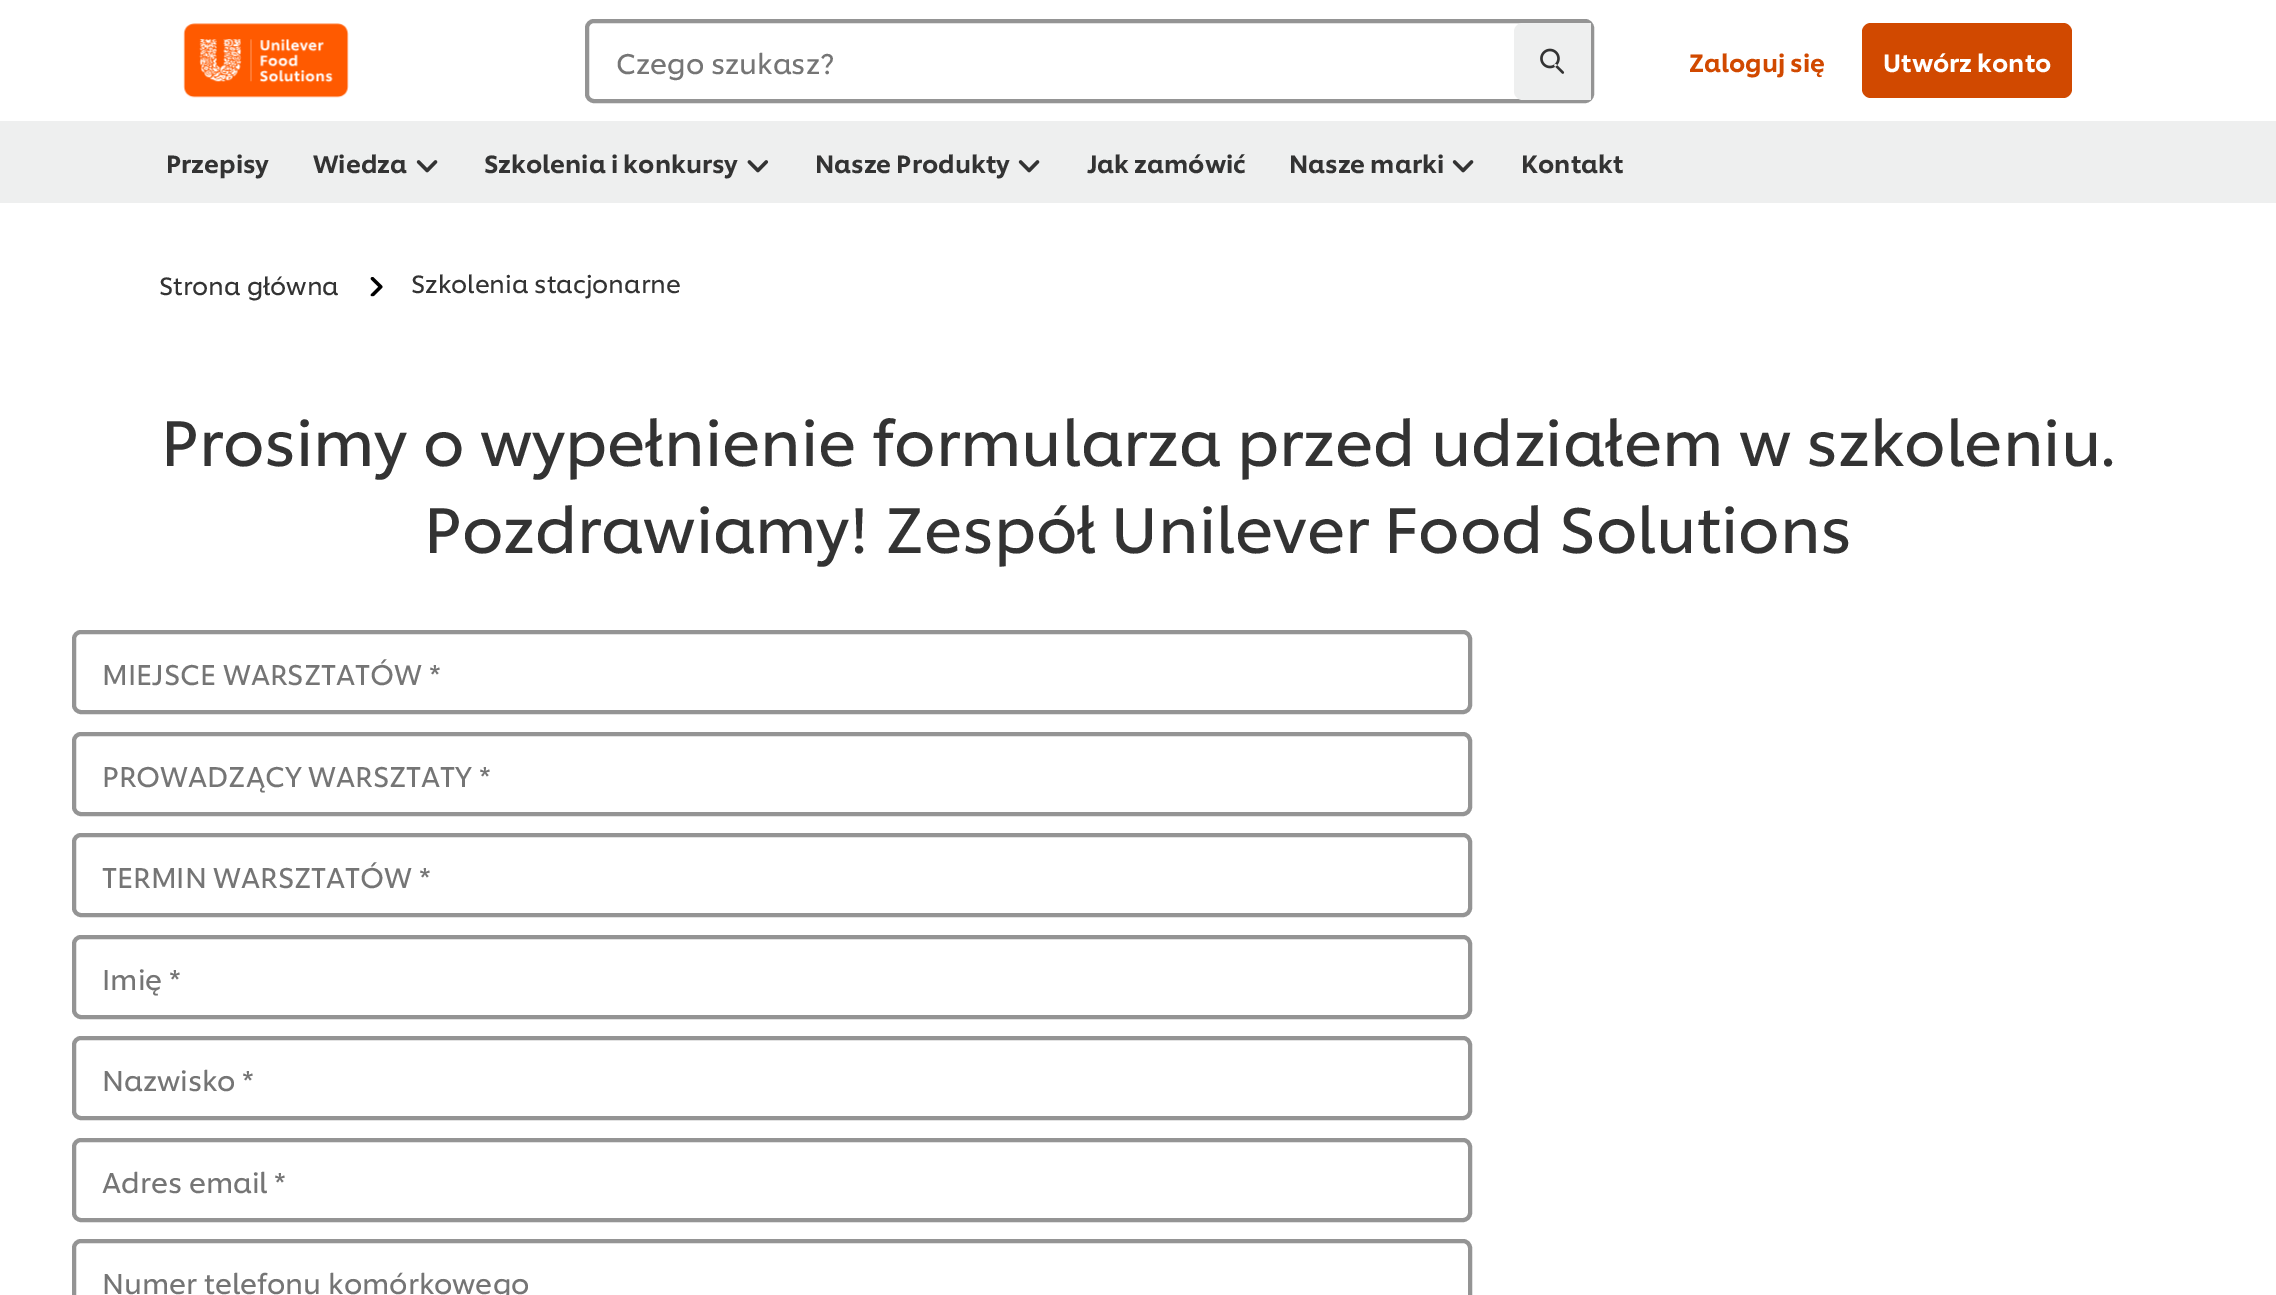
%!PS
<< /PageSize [2276 1295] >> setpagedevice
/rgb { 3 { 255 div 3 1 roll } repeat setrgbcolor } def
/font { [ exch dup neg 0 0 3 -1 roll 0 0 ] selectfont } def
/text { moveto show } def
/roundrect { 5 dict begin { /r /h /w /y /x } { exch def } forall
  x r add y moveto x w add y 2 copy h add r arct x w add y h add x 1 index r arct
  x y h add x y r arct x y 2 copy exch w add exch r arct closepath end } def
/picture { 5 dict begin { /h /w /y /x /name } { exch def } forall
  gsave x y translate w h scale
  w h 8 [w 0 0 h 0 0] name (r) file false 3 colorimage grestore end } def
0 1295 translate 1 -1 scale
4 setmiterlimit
255 255 255 rgb
0 0 2276 1295 rectfill
(img_01.rgb) 183 23 166 75 picture
148 148 148 rgb
4 setlinewidth
587 21 1005 80 7 roundrect stroke
238 239 239 rgb
1523 23 moveto 68 0 rlineto 0 77 rlineto -68 0 rlineto -5 0 -9 -4 -9 -9 rcurveto 0 -59 rlineto 0 -5 4 -9 9 -9 rcurveto closepath fill
(img_02.rgb) 1540 48 25 26 picture
209 73 0 rgb
1862 23 210 75 9 roundrect fill
238 239 239 rgb
0 121 2276 82 rectfill
(img_03.rgb) 416 160 22 13 picture
(img_04.rgb) 747 160 22 13 picture
(img_03.rgb) 1018 160 22 13 picture
(img_03.rgb) 1452 160 22 13 picture
(img_05.rgb) 370 277 13 20 picture
148 148 148 rgb
74 632 1396 80 7 roundrect stroke
74 734 1396 80 7 roundrect stroke
74 835 1396 80 7 roundrect stroke
74 937 1396 80 7 roundrect stroke
74 1038 1396 80 7 roundrect stroke
74 1140 1396 80 7 roundrect stroke
74 1241 1396 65 7 roundrect stroke
/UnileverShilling-Regular 28 font
117 117 117 rgb
(Czego szukasz?) 616 74 text
/UnileverShilling-Medium 24.5 font
209 73 0 rgb
(Zaloguj się) 1689 72 text
255 255 255 rgb
(Utwórz konto) 1883 72 text
51 51 51 rgb
(Przepisy) 166 173 text
(Wiedza) 313 173 text
(Szkolenia i konkursy) 484 173 text
(Nasze Produkty) 815 173 text
(Jak zamówić) 1087 173 text
(Nasze marki) 1289 173 text
(Kontakt) 1521 173 text
/UnileverShilling-Regular 24.5 font
(Strona główna) 159 295 text
(Szkolenia stacjonarne) 411 293 text
/UnileverShilling-Regular 63 font
(Prosimy o wypełnienie formularza przed udziałem w szkoleniu.) 161 466 text
(Pozdrawiamy! Zespół Unilever Food Solutions) 424 553 text
/UnileverShilling-Regular 28 font
117 117 117 rgb
(MIEJSCE WARSZTATÓW *) 102 685 text
(PROWADZĄCY WARSZTATY *) 102 787 text
(TERMIN WARSZTATÓW *) 102 888 text
(Imię *) 102 990 text
(Nazwisko *) 102 1091 text
(Adres email *) 102 1193 text
(Numer telefonu komórkowego) 102 1294 text
showpage
